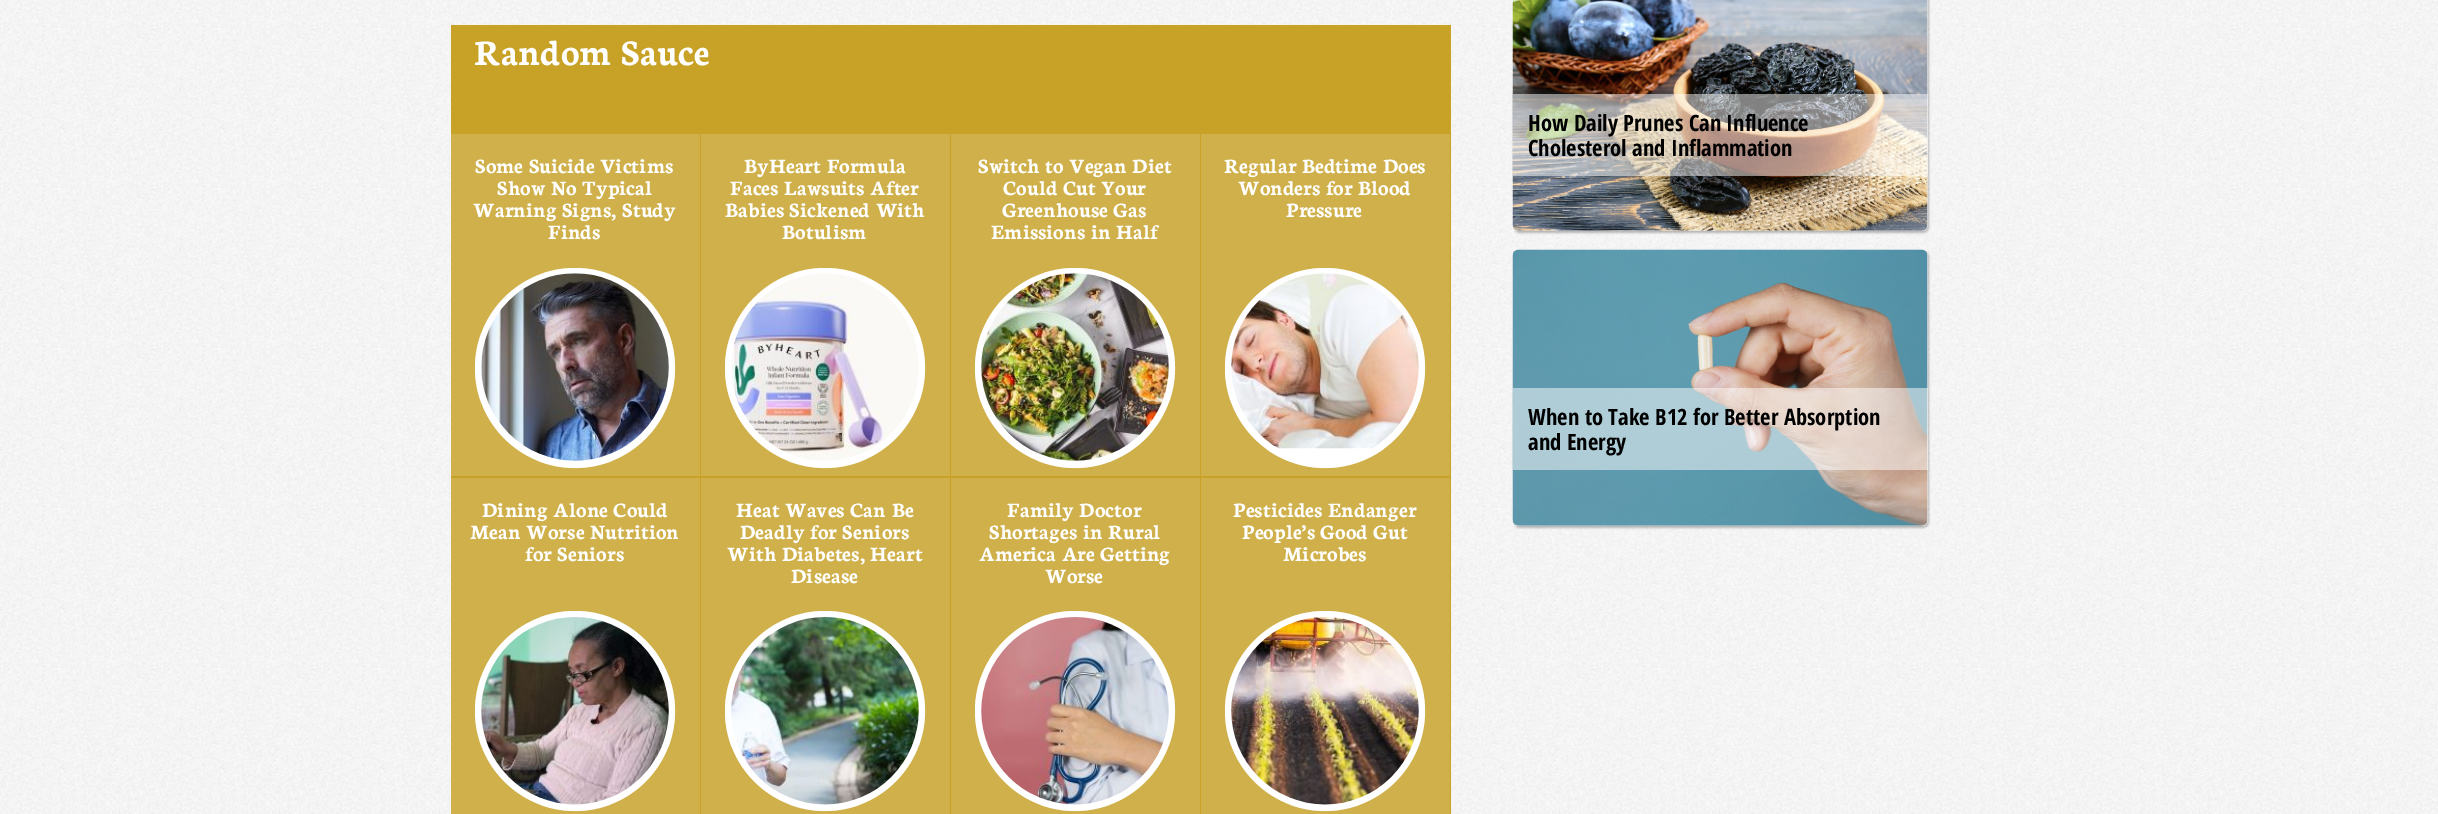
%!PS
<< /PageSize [2438 814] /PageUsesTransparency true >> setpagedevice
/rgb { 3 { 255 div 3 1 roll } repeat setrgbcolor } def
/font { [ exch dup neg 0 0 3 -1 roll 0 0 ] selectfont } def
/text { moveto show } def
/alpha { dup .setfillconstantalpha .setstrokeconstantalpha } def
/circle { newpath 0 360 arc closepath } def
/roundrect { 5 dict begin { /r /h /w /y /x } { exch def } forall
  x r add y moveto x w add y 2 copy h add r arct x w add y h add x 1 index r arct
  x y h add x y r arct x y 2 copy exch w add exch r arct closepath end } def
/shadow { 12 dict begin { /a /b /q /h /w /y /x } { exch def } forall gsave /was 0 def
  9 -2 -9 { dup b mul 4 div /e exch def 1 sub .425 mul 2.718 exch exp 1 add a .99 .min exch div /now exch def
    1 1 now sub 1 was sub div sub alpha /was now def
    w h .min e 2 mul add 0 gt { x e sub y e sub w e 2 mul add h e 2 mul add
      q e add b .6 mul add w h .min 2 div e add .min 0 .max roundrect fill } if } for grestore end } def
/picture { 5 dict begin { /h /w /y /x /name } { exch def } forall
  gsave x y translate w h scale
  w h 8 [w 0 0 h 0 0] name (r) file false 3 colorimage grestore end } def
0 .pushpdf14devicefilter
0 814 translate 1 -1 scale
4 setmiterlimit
255 255 255 rgb
0 0 2438 814 rectfill
(img_01.rgb) 0 0 2438 814 picture
200 162 38 rgb
451 25 1000 789 rectfill
207 176 74 rgb
451 134 249 342 rectfill
255 255 255 rgb
575 368 100 circle fill
0.3 alpha
6 setlinewidth
575 368 97 circle stroke
1 alpha
(img_02.rgb) 481 273 188 188 picture
207 176 74 rgb
701 134 249 342 rectfill
255 255 255 rgb
825 368 100 circle fill
0.3 alpha
825 368 97 circle stroke
1 alpha
(img_03.rgb) 731 273 188 188 picture
207 176 74 rgb
951 134 249 342 rectfill
255 255 255 rgb
1075 368 100 circle fill
0.3 alpha
1075 368 97 circle stroke
1 alpha
(img_04.rgb) 981 273 188 188 picture
207 176 74 rgb
1201 134 249 342 rectfill
255 255 255 rgb
1325 368 100 circle fill
0.3 alpha
1325 368 97 circle stroke
1 alpha
(img_05.rgb) 1231 273 188 176 picture
207 176 74 rgb
451 478 249 336 rectfill
255 255 255 rgb
575 711 100 circle fill
0.3 alpha
575 711 97 circle stroke
1 alpha
(img_06.rgb) 481 617 188 188 picture
207 176 74 rgb
701 478 249 336 rectfill
255 255 255 rgb
825 711 100 circle fill
0.3 alpha
825 711 97 circle stroke
1 alpha
(img_07.rgb) 731 617 188 188 picture
207 176 74 rgb
951 478 249 336 rectfill
255 255 255 rgb
1075 711 100 circle fill
0.3 alpha
1075 711 97 circle stroke
1 alpha
(img_08.rgb) 981 617 188 188 picture
207 176 74 rgb
1201 478 249 336 rectfill
255 255 255 rgb
1325 711 100 circle fill
0.3 alpha
1325 711 97 circle stroke
1 alpha
(img_09.rgb) 1231 617 188 188 picture
0 0 0 rgb
1514 -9 415 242 6 1 0.25 shadow
224 224 224 rgb
1513 -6 415 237 6 roundrect fill
(img_10.rgb) 1512 0 416 231 picture
0.5 alpha
255 255 255 rgb
1513 94 415 82 rectfill
1 alpha
0 0 0 rgb
1514 251 415 277 6 1 0.25 shadow
224 224 224 rgb
1513 250 415 276 6 roundrect fill
(img_11.rgb) 1512 249 416 277 picture
0.5 alpha
255 255 255 rgb
1513 388 415 82 rectfill
/Neuton-Bold 38.5 font
1 alpha
(Random Sauce) 474 65 text
/Neuton-Bold 21.9 font
(Some Suicide Victims) 475 173 text
(Show No Typical) 497 195 text
(Warning Signs, Study) 473 217 text
(Finds) 548 239 text
(ByHeart Formula) 744 173 text
(Faces Lawsuits After) 730 195 text
(Babies Sickened With) 725 217 text
(Botulism) 782 239 text
(Switch to Vegan Diet) 978 173 text
(Could Cut Your) 1003 195 text
(Greenhouse Gas) 1002 217 text
(Emissions in Half) 991 239 text
(Regular Bedtime Does) 1224 173 text
(Wonders for Blood) 1238 195 text
(Pressure) 1286 217 text
(Dining Alone Could) 482 517 text
(Mean Worse Nutrition) 470 539 text
(for Seniors) 525 561 text
(Heat Waves Can Be) 736 517 text
(Deadly for Seniors) 740 539 text
(With Diabetes, Heart) 727 561 text
(Disease) 791 583 text
(Family Doctor) 1007 517 text
(Shortages in Rural) 989 539 text
(America Are Getting) 979 561 text
(Worse) 1045 583 text
(Pesticides Endanger) 1233 517 text
(People’s Good Gut) 1242 539 text
(Microbes) 1283 561 text
/OpenSansCondensed-Bold 22.5 font
0 0 0 rgb
(How Daily Prunes Can Influence) 1528 131 text
(Cholesterol and Inflammation) 1528 156 text
(When to Take B12 for Better Absorption) 1528 425 text
(and Energy) 1528 450 text
.poppdf14devicefilter showpage
